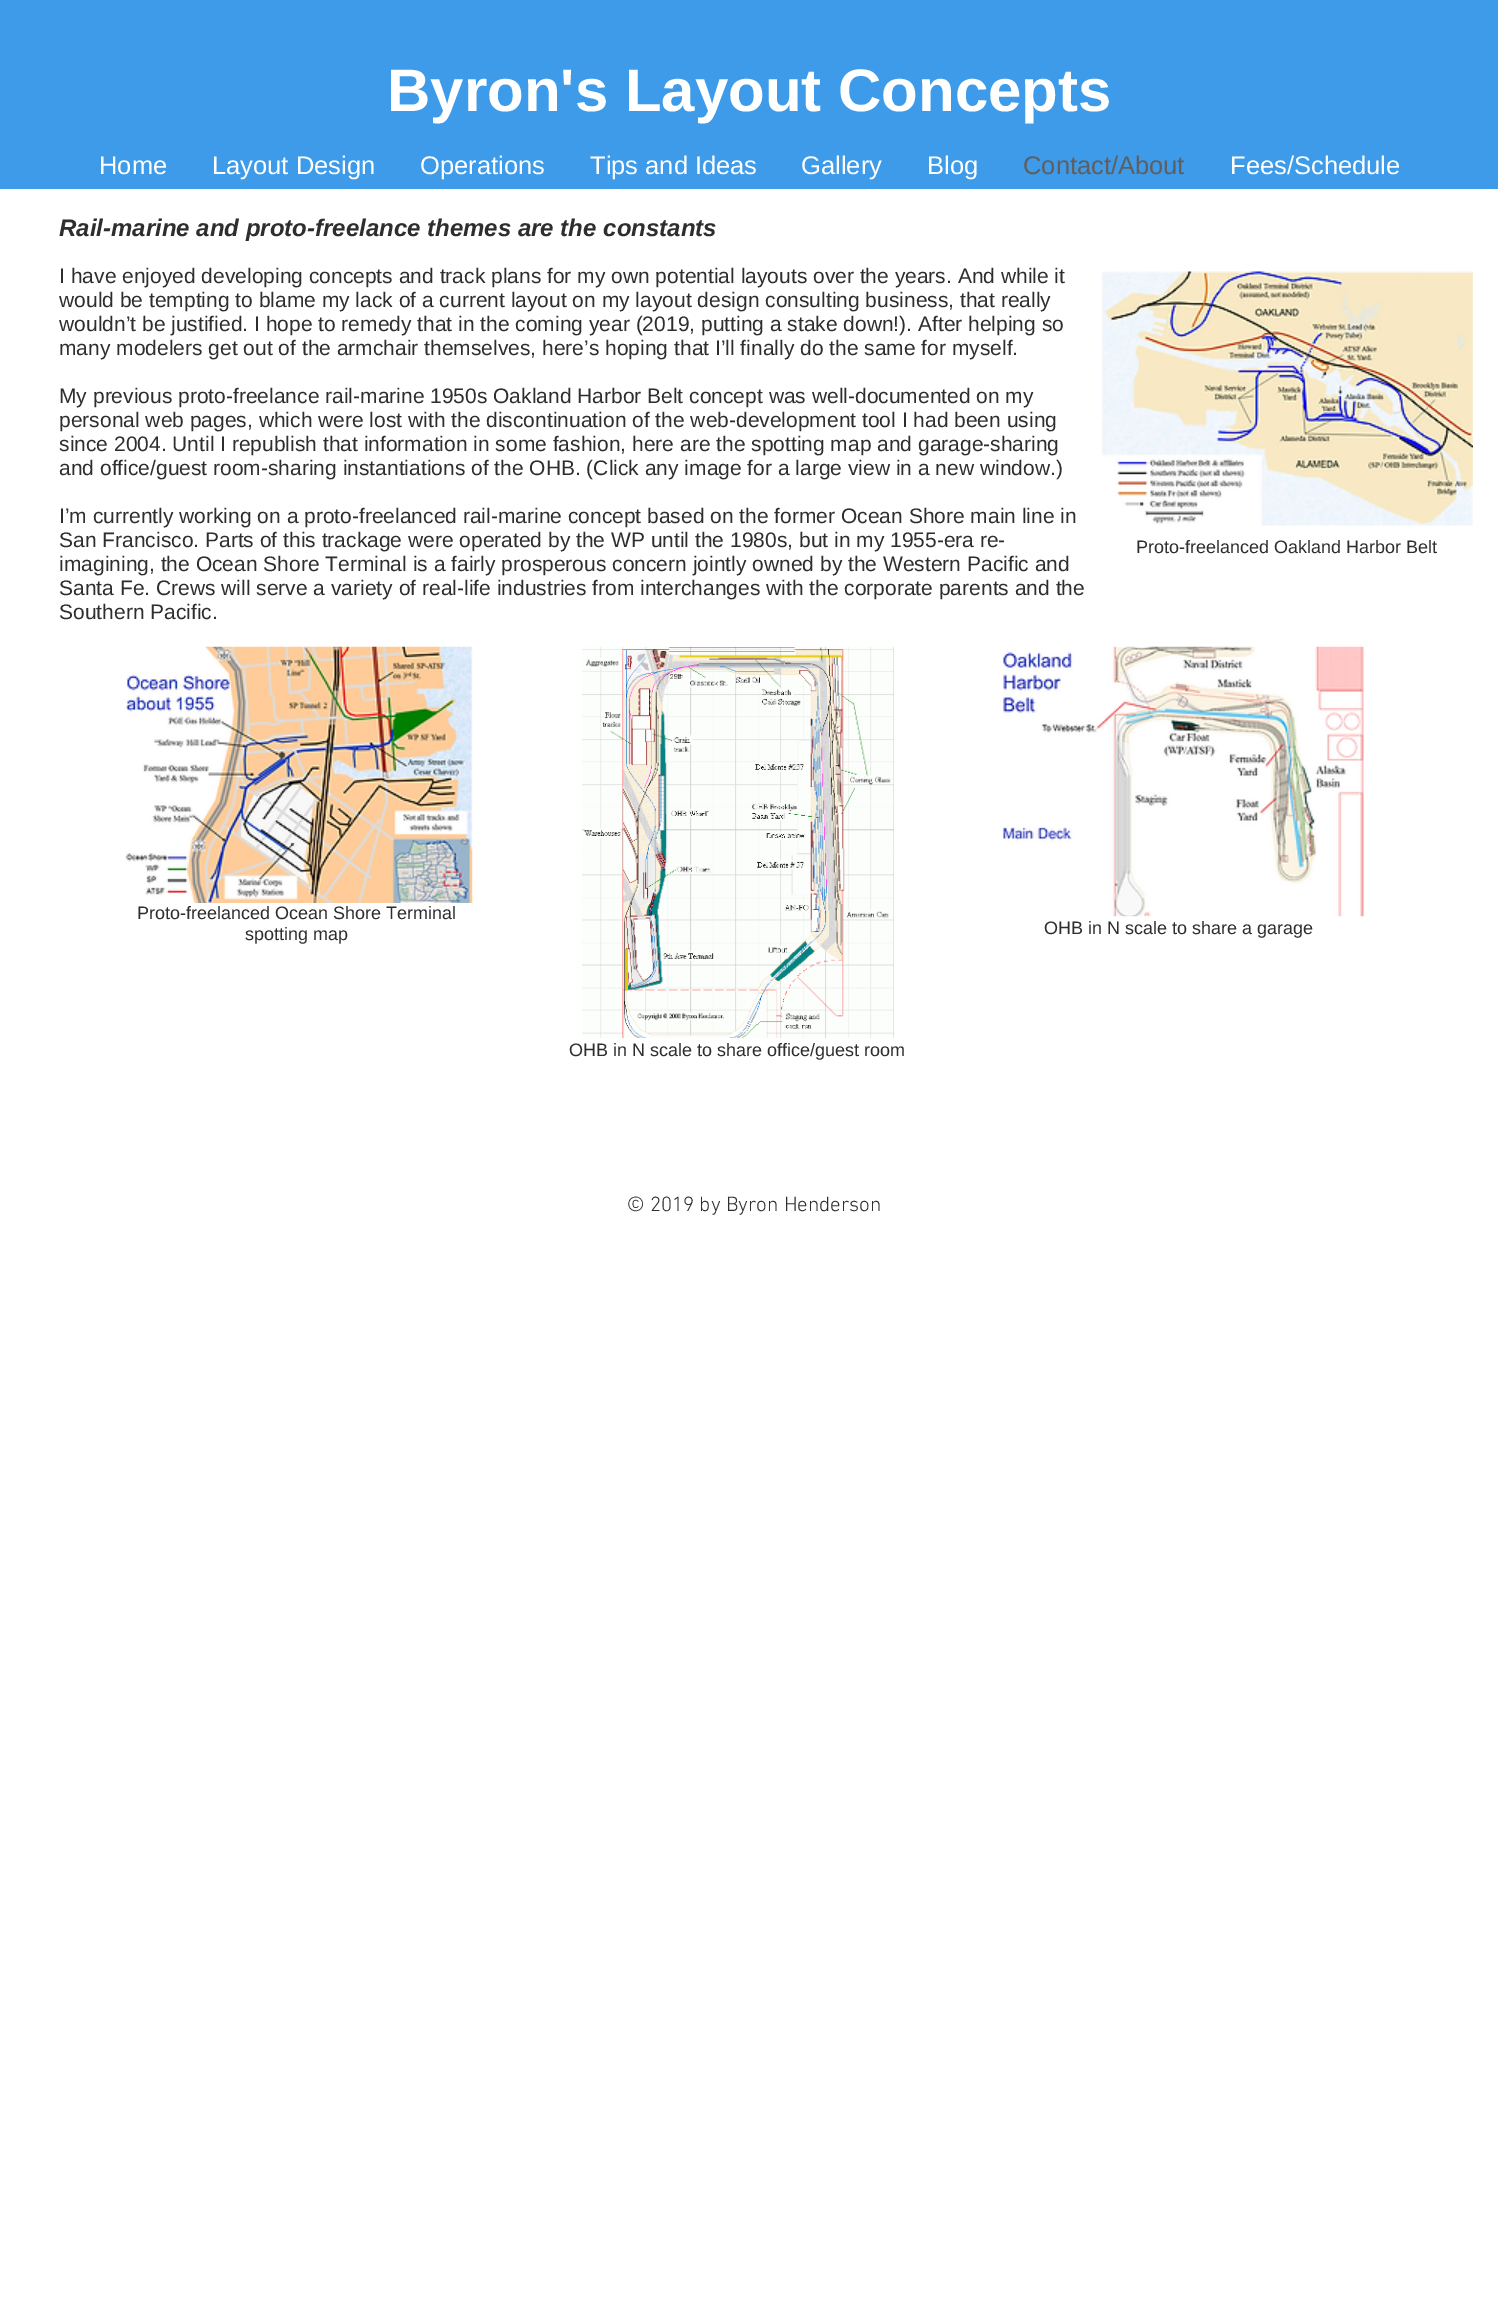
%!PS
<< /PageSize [1498 2319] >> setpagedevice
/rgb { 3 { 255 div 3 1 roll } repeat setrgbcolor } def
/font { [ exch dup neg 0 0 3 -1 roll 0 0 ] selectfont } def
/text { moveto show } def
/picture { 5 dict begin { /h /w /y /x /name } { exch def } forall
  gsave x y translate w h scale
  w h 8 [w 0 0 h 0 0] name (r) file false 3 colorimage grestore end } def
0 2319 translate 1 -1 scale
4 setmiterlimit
255 255 255 rgb
0 0 1498 2319 rectfill
(img_01.rgb) 1101 271 372 255 picture
(img_02.rgb) 125 646 348 257 picture
(img_03.rgb) 582 646 312 392 picture
(img_04.rgb) 1003 646 361 271 picture
61 155 233 rgb
0 0 1498 189 rectfill
/LiberationSans-Bold 60 font
255 255 255 rgb
(Byron's Layout Concepts) 387 111 text
/LiberationSans-BoldItalic 24 font
47 46 46 rgb
(Rail-marine and proto-freelance themes are the constants) 59 236 text
/LiberationSans-Regular 21 font
(I have enjoyed developing concepts and track plans for my own potential layouts over the years. And while it) 59 283 text
(would be tempting to blame my lack of a current layout on my layout design consulting business, that really) 59 307 text
(wouldn’t be justified. I hope to remedy that in the coming year \(2019, putting a stake down!\). After helping so) 59 331 text
(many modelers get out of the armchair themselves, here’s hoping that I’ll finally do the same for myself.) 59 355 text
(My previous proto-freelance rail-marine 1950s Oakland Harbor Belt concept was well-documented on my) 59 403 text
(personal web pages, which were lost with the discontinuation of the web-development tool I had been using) 59 427 text
(since 2004. Until I republish that information in some fashion, here are the spotting map and garage-sharing) 59 451 text
(and office/guest room-sharing instantiations of the OHB. \(Click any image for a large view in a new window.\)) 59 475 text
(I’m currently working on a proto-freelanced rail-marine concept based on the former Ocean Shore main line in) 59 523 text
(San Francisco. Parts of this trackage were operated by the WP until the 1980s, but in my 1955-era re-) 59 547 text
(imagining, the Ocean Shore Terminal is a fairly prosperous concern jointly owned by the Western Pacific and) 59 571 text
(Santa Fe. Crews will serve a variety of real-life industries from interchanges with the corporate parents and the) 59 595 text
(Southern Pacific.) 59 619 text
/LiberationSans-Regular 18 font
(Proto-freelanced Oakland Harbor Belt) 1136 553 text
(Proto-freelanced Ocean Shore Terminal) 137 919 text
(spotting map) 245 940 text
(OHB in N scale to share a garage) 1044 934 text
(OHB in N scale to share office/guest room) 569 1056 text
/LiberationSans-Regular 25.5 font
255 255 255 rgb
(Home) 99 174 text
(Layout Design) 212 174 text
(Operations) 420 174 text
(Tips and Ideas) 590 174 text
(Gallery) 801 174 text
(Blog) 927 174 text
96 94 94 rgb
(Contact/About) 1023 174 text
255 255 255 rgb
(Fees/Schedule) 1230 174 text
/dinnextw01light-Light 21 font
47 46 46 rgb
(© 2019 by Byron Henderson) 627 1211 text
showpage
